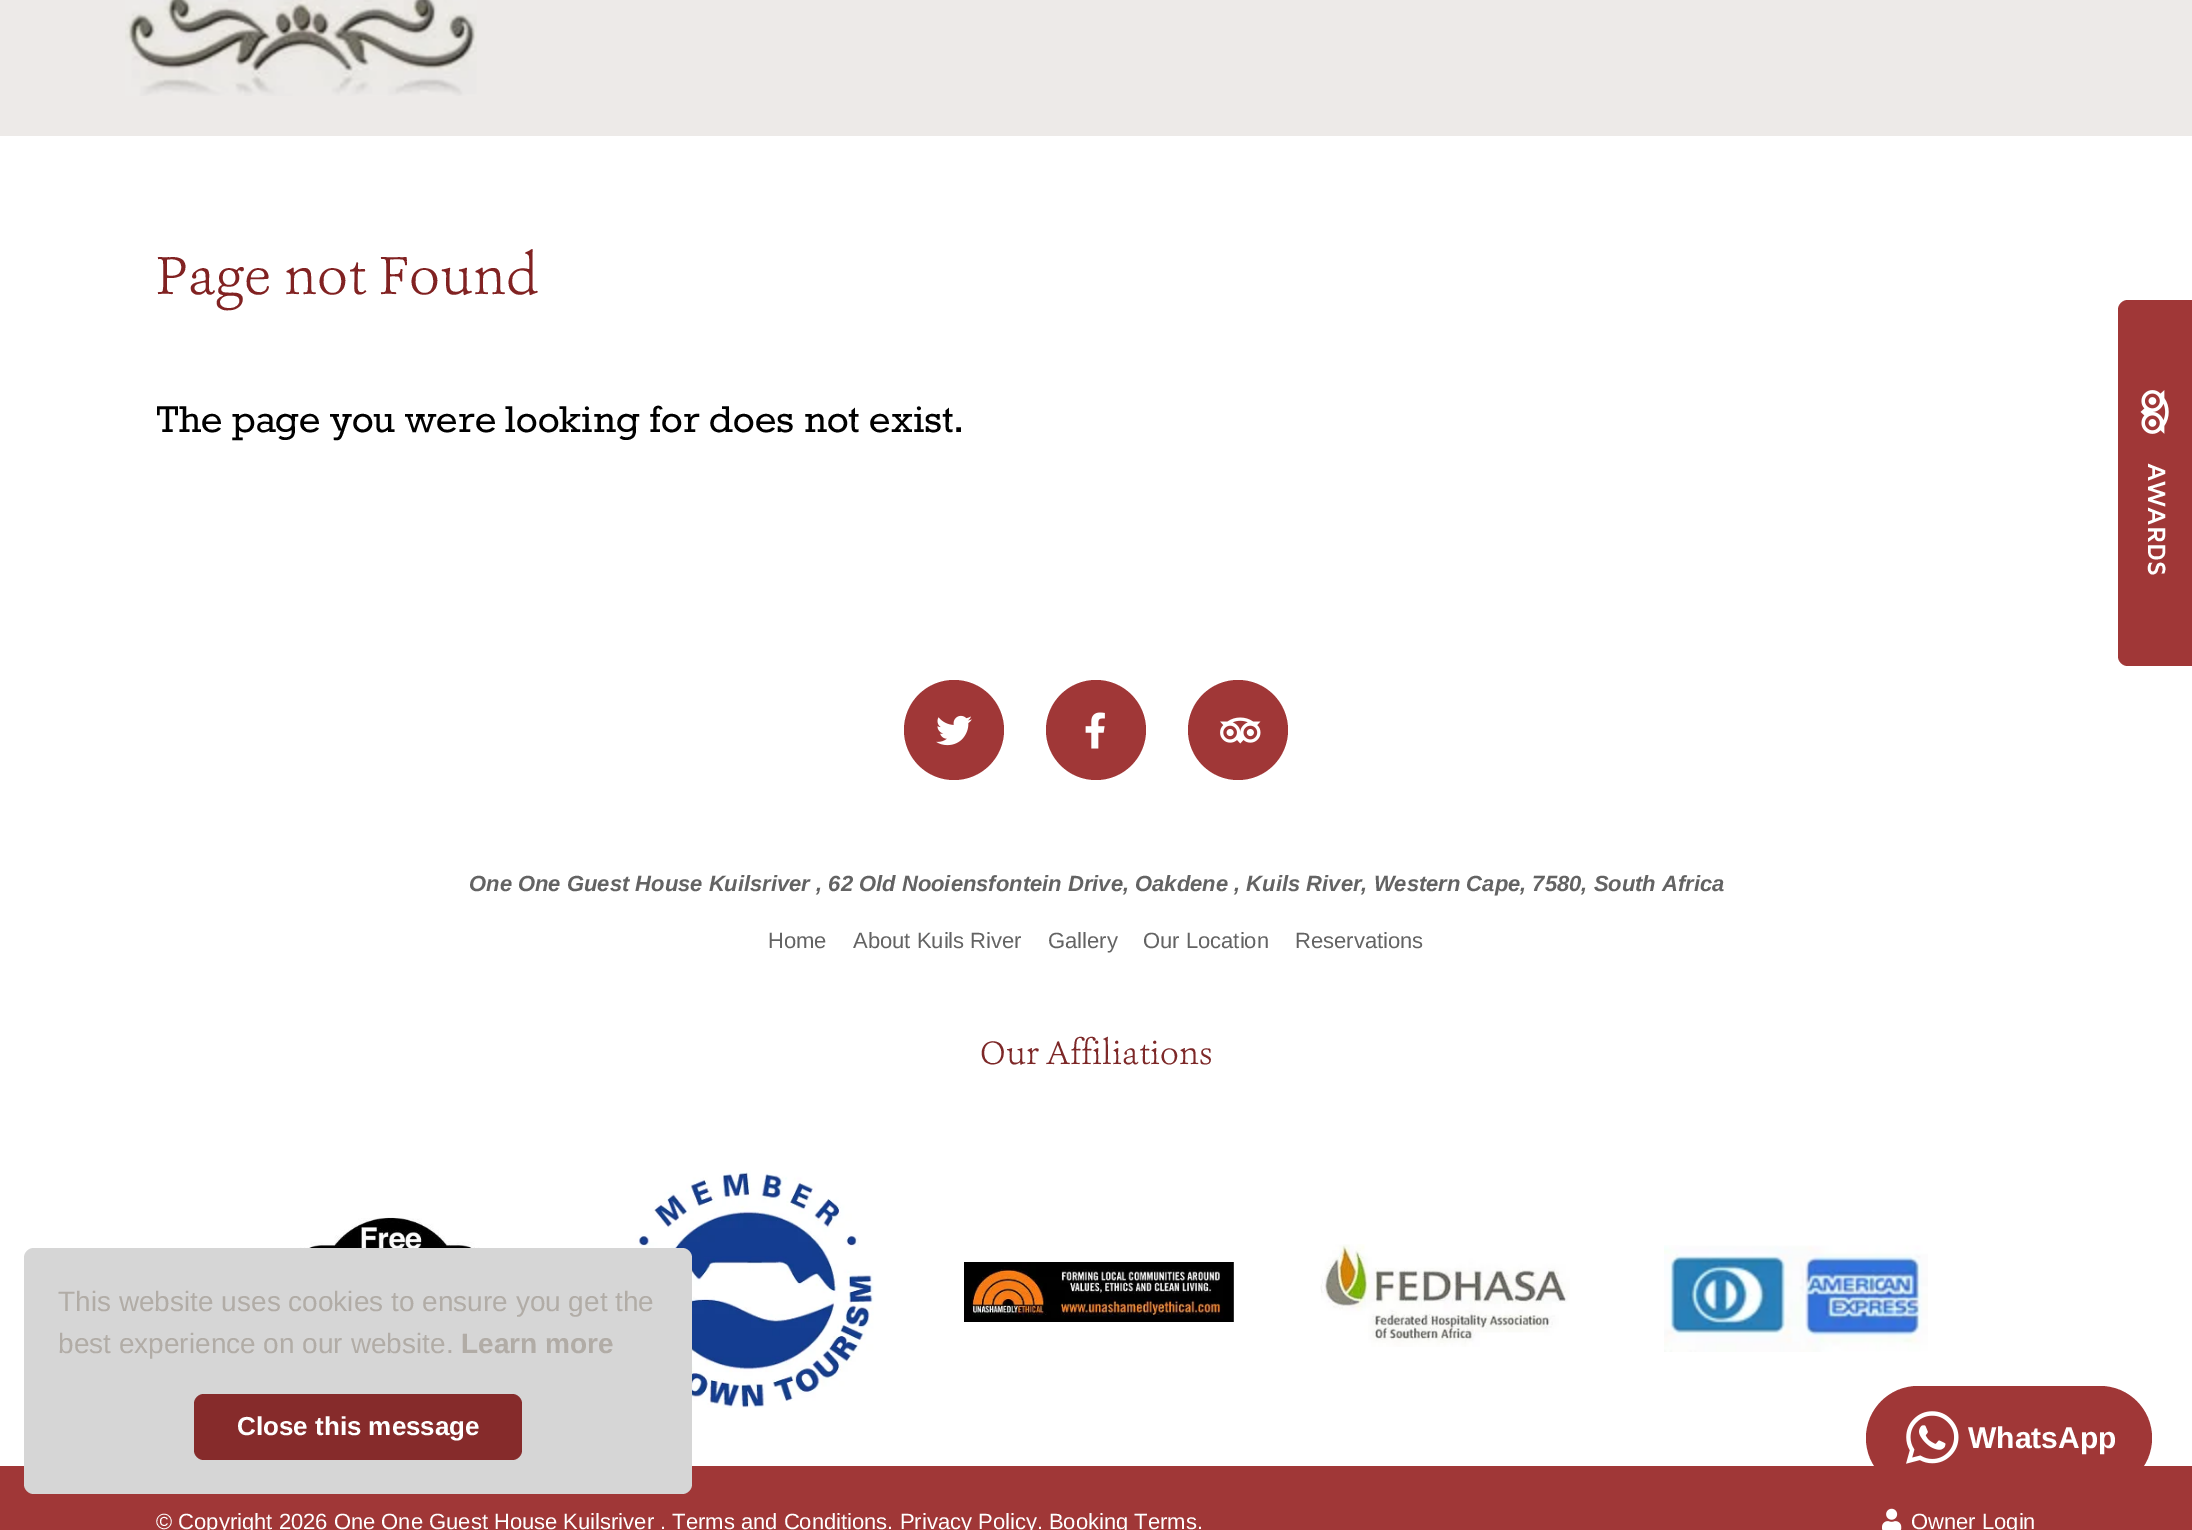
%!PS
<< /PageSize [2192 1530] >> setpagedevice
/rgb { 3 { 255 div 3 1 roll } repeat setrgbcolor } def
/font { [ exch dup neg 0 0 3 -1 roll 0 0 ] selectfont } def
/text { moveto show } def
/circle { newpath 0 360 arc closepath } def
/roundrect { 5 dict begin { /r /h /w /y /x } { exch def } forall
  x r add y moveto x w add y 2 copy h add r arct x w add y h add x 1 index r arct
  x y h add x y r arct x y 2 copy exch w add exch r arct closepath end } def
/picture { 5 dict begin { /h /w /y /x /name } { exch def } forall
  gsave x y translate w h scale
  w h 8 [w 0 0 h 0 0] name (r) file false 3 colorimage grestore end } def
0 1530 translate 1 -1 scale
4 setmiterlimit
255 255 255 rgb
0 0 2192 1530 rectfill
237 234 232 rgb
0 0 2192 136 rectfill
(img_01.rgb) 125 0 352 96 picture
160 55 55 rgb
2128 300 moveto 64 0 rlineto 0 366 rlineto -64 0 rlineto -5.5 0 -10 -4.5 -10 -10 rcurveto 0 -346 rlineto 0 -5.5 4.5 -10 10 -10 rcurveto closepath fill
(img_02.rgb) 2140 390 29 44 picture
954 730 50 circle fill
(img_03.rgb) 936 715 36 31 picture
1096 730 50 circle fill
(img_04.rgb) 1085 712 20 37 picture
1238 730 50 circle fill
(img_05.rgb) 1220 717 41 27 picture
(img_06.rgb) 287 1217 210 31 picture
(img_07.rgb) 623 1170 251 238 picture
(img_08.rgb) 964 1262 270 60 picture
(img_09.rgb) 1320 1244 250 103 picture
(img_10.rgb) 1664 1245 264 107 picture
0 1466 2192 64 rectfill
(img_11.rgb) 1882 1508 20 22 picture
214 214 214 rgb
24 1248 668 246 10 roundrect fill
134 43 43 rgb
194 1394 328 66 10 roundrect fill
160 55 55 rgb
1866 1386 286 104 52 roundrect fill
(img_12.rgb) 1906 1411 53 53 picture
/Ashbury-Light 56 font
129 34 34 rgb
(Page not Found) 156 294 text
/Rokkitt-Regular 45.6 font
0 0 0 rgb
(The page you were looking for does not exist.) 156 432 text
/MavenPro-Bold 26 font
255 255 255 rgb
gsave 2148 463 translate 90 rotate 0 0 moveto (AWARDS) show grestore
/LiberationSans-BoldItalic 22 font
99 99 99 rgb
(One One Guest House Kuilsriver , 62 Old Nooiensfontein Drive, Oakdene , Kuils River, Western Cape, 7580, South Africa) 469 891 text
/LiberationSans-Regular 22 font
(Home) 768 948 text
(About Kuils River) 853 948 text
(Gallery) 1048 948 text
(Our Location) 1143 948 text
(Reservations) 1295 948 text
/Ashbury-Light 34 font
125 40 40 rgb
(Our Affiliations) 980 1064 text
/LiberationSans-Regular 22 font
255 255 255 rgb
(© Copyright 2026 One One Guest House Kuilsriver . Terms and Conditions. Privacy Policy. Booking Terms.) 156 1529 text
(Owner Login) 1911 1529 text
/LiberationSans-Regular 28 font
177 172 166 rgb
(This website uses cookies to ensure you get the) 58 1311 text
(best experience on our website.) 58 1353 text
/LiberationSans-Bold 28 font
(Learn more) 461 1353 text
/LiberationSans-Bold 26 font
255 255 255 rgb
(Close this message) 237 1435 text
/LiberationSans-Bold 30 font
(WhatsApp) 1968 1448 text
showpage
